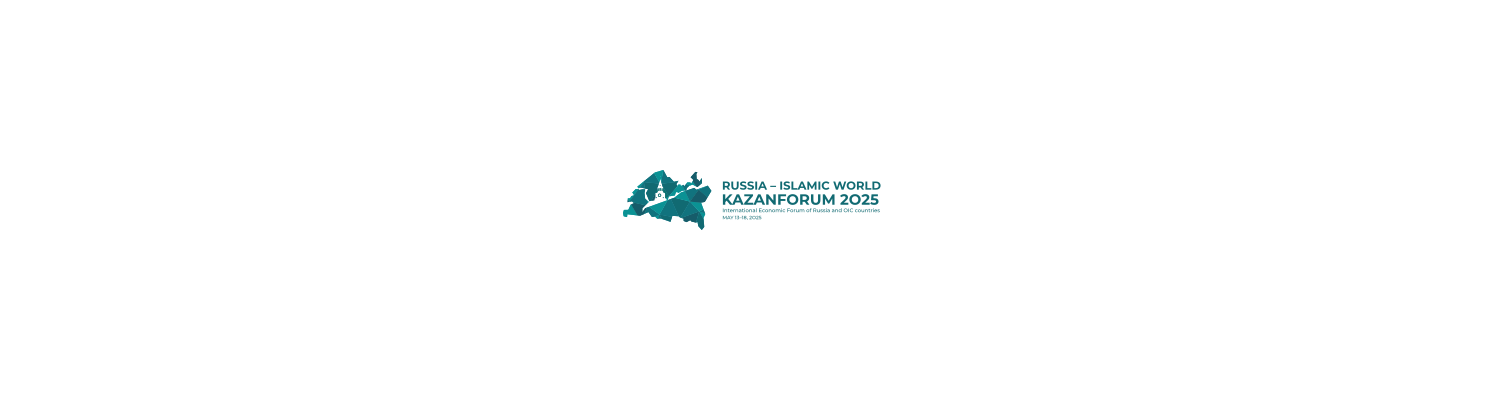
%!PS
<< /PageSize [1504 400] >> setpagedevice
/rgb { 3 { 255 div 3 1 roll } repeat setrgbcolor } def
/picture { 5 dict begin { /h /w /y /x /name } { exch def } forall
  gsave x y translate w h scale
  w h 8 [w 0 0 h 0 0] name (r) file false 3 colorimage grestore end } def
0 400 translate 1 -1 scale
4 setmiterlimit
255 255 255 rgb
0 0 1504 400 rectfill
(img_01.rgb) 623 170 258 60 picture
showpage
